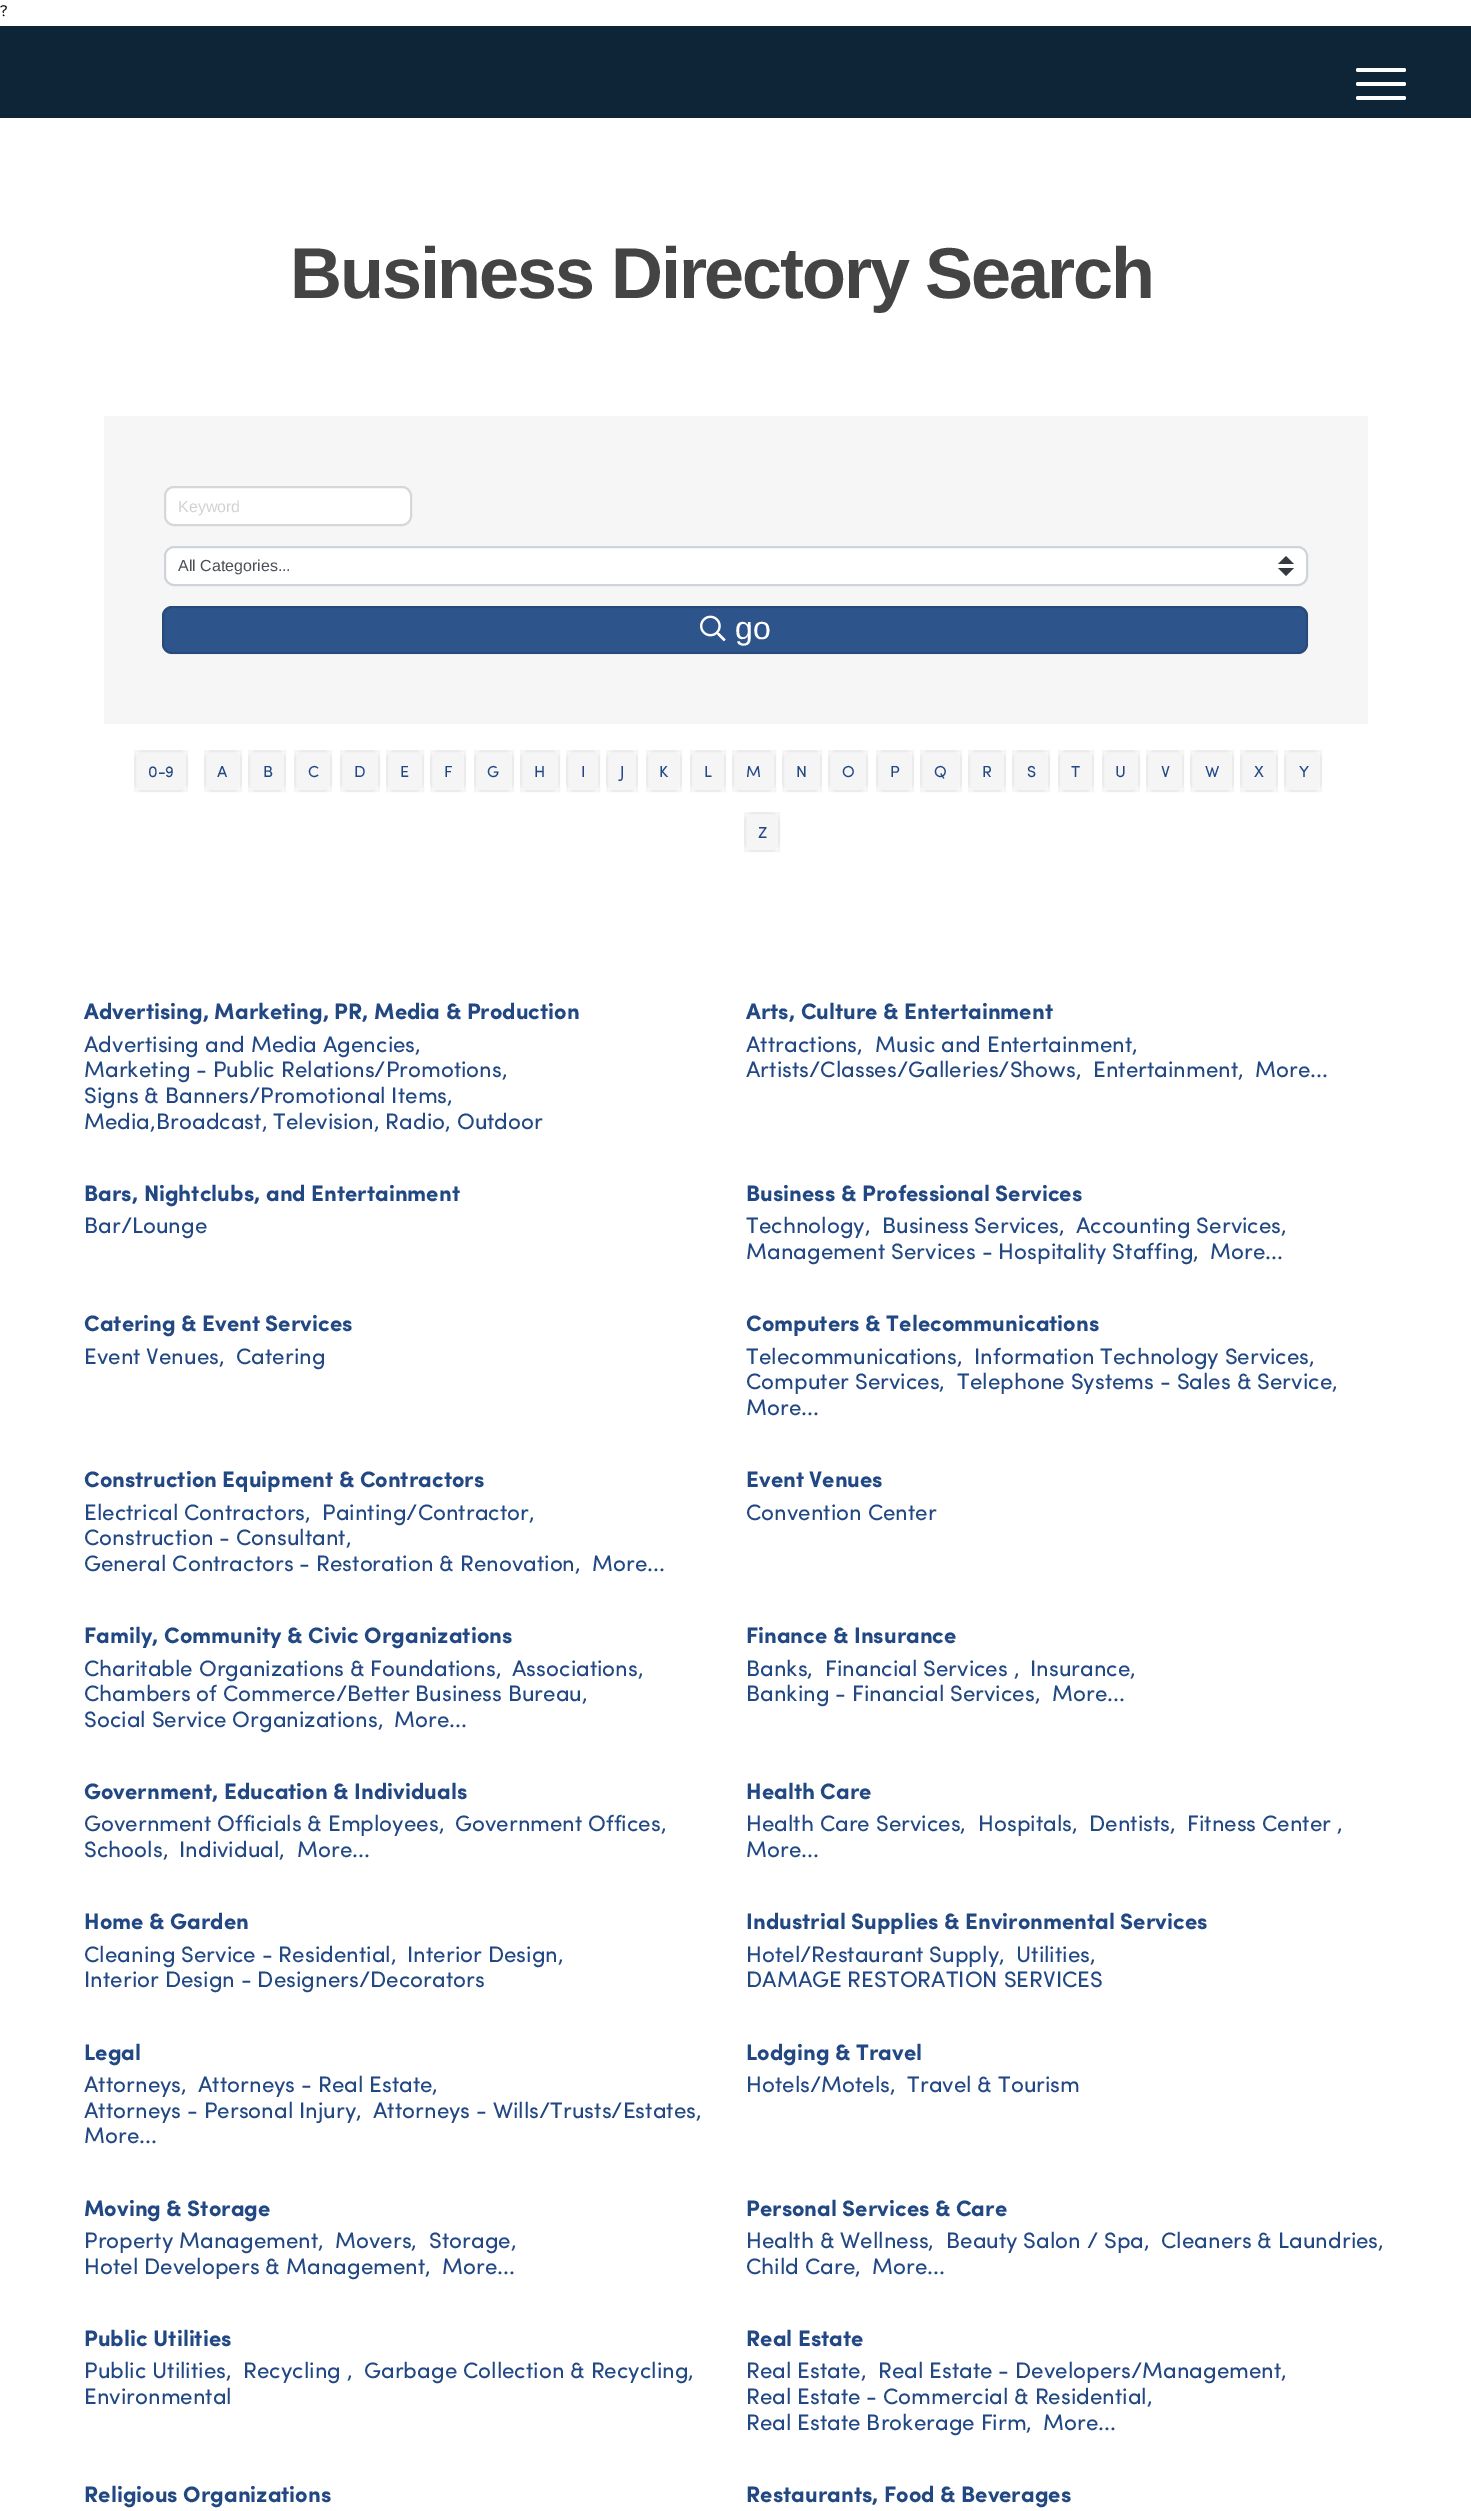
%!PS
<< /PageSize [1471 2511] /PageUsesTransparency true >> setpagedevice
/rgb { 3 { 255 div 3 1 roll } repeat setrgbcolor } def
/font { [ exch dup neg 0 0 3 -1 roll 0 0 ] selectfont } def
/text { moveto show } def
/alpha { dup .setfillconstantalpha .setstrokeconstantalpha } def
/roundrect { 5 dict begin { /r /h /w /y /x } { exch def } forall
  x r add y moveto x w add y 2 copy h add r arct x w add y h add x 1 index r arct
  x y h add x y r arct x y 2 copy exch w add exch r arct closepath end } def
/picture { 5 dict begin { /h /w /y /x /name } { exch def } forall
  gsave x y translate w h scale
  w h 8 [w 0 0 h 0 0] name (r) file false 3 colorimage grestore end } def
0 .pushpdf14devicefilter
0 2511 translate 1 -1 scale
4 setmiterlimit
255 255 255 rgb
0 0 1471 2511 rectfill
14 37 55 rgb
0 26 1471 92 rectfill
255 255 255 rgb
1356 82 50 4 2 roundrect fill
1356 68 50 4 2 roundrect fill
1356 96 50 4 2 roundrect fill
246 246 246 rgb
104 416 1264 308 rectfill
255 255 255 rgb
165 487 246 38 9 roundrect gsave fill grestore
215 215 215 rgb
2 setlinewidth
stroke
255 255 255 rgb
164 546 1144 40 10 roundrect fill
52 58 64 rgb
1286 556 moveto -8 8 rlineto 16 0 rlineto closepath 1286 576 moveto -8 -8 rlineto 16 0 rlineto closepath fill
206 212 218 rgb
165 547 1142 38 9 roundrect stroke
45 84 139 rgb
162 606 1146 48 10 roundrect fill
0.12 alpha
0 0 0 rgb
163 607 1144 46 9 roundrect stroke
1 alpha
(img_01.rgb) 700 615 26 27 picture
245 245 245 rgb
134 750 54 42 10 roundrect fill
0.04 alpha
0 0 0 rgb
135 751 52 40 rectstroke
1 alpha
245 245 245 rgb
204 750 38 42 10 roundrect fill
0.04 alpha
0 0 0 rgb
205 751 36 40 rectstroke
1 alpha
245 245 245 rgb
248 750 38 42 10 roundrect fill
0.04 alpha
0 0 0 rgb
249 751 36 40 rectstroke
1 alpha
245 245 245 rgb
294 750 38 42 10 roundrect fill
0.04 alpha
0 0 0 rgb
295 751 36 40 rectstroke
1 alpha
245 245 245 rgb
340 750 40 42 10 roundrect fill
0.04 alpha
0 0 0 rgb
341 751 38 40 rectstroke
1 alpha
245 245 245 rgb
386 750 38 42 10 roundrect fill
0.04 alpha
0 0 0 rgb
387 751 36 40 rectstroke
1 alpha
245 245 245 rgb
430 750 36 42 10 roundrect fill
0.04 alpha
0 0 0 rgb
431 751 34 40 rectstroke
1 alpha
245 245 245 rgb
474 750 40 42 10 roundrect fill
0.04 alpha
0 0 0 rgb
475 751 38 40 rectstroke
1 alpha
245 245 245 rgb
520 750 40 42 10 roundrect fill
0.04 alpha
0 0 0 rgb
521 751 38 40 rectstroke
1 alpha
245 245 245 rgb
566 750 34 42 10 roundrect fill
0.04 alpha
0 0 0 rgb
567 751 32 40 rectstroke
1 alpha
245 245 245 rgb
606 750 32 42 10 roundrect fill
0.04 alpha
0 0 0 rgb
607 751 30 40 rectstroke
1 alpha
245 245 245 rgb
646 750 36 42 10 roundrect fill
0.04 alpha
0 0 0 rgb
647 751 34 40 rectstroke
1 alpha
245 245 245 rgb
690 750 36 42 10 roundrect fill
0.04 alpha
0 0 0 rgb
691 751 34 40 rectstroke
1 alpha
245 245 245 rgb
732 750 44 42 10 roundrect fill
0.04 alpha
0 0 0 rgb
733 751 42 40 rectstroke
1 alpha
245 245 245 rgb
782 750 40 42 10 roundrect fill
0.04 alpha
0 0 0 rgb
783 751 38 40 rectstroke
1 alpha
245 245 245 rgb
828 750 40 42 10 roundrect fill
0.04 alpha
0 0 0 rgb
829 751 38 40 rectstroke
1 alpha
245 245 245 rgb
876 750 38 42 10 roundrect fill
0.04 alpha
0 0 0 rgb
877 751 36 40 rectstroke
1 alpha
245 245 245 rgb
920 750 42 42 10 roundrect fill
0.04 alpha
0 0 0 rgb
921 751 40 40 rectstroke
1 alpha
245 245 245 rgb
968 750 38 42 10 roundrect fill
0.04 alpha
0 0 0 rgb
969 751 36 40 rectstroke
1 alpha
245 245 245 rgb
1012 750 38 42 10 roundrect fill
0.04 alpha
0 0 0 rgb
1013 751 36 40 rectstroke
1 alpha
245 245 245 rgb
1058 750 36 42 10 roundrect fill
0.04 alpha
0 0 0 rgb
1059 751 34 40 rectstroke
1 alpha
245 245 245 rgb
1102 750 38 42 10 roundrect fill
0.04 alpha
0 0 0 rgb
1103 751 36 40 rectstroke
1 alpha
245 245 245 rgb
1146 750 38 42 10 roundrect fill
0.04 alpha
0 0 0 rgb
1147 751 36 40 rectstroke
1 alpha
245 245 245 rgb
1190 750 44 42 10 roundrect fill
0.04 alpha
0 0 0 rgb
1191 751 42 40 rectstroke
1 alpha
245 245 245 rgb
1240 750 38 42 10 roundrect fill
0.04 alpha
0 0 0 rgb
1241 751 36 40 rectstroke
1 alpha
245 245 245 rgb
1284 750 38 42 10 roundrect fill
0.04 alpha
0 0 0 rgb
1285 751 36 40 rectstroke
1 alpha
245 245 245 rgb
744 812 36 40 10 roundrect fill
0.04 alpha
0 0 0 rgb
745 813 34 38 rectstroke
/ProximaNova-Regular 16 font
1 alpha
(?) 0 16 text
/LiberationSans-Bold 72 font
68 68 68 rgb
290 298 moveto -2.15 0 (Business Directory Search) ashow
/LiberationSans-Regular 16 font
210 210 210 rgb
(Keyword) 178 512 text
73 80 87 rgb
(All Categories...) 178 571 text
/LiberationSans-Regular 32 font
255 255 255 rgb
(go) 735 639 text
/Sofia-Regular 16 font
34 72 132 rgb
(0-9) 148 777 text
(A) 217 777 text
(B) 263 777 text
(C) 308 777 text
(D) 354 777 text
(E) 400 777 text
(F) 444 777 text
(G) 487 777 text
(H) 534 777 text
(I) 581 777 text
(J) 620 777 text
(K) 659 777 text
(L) 704 777 text
(M) 746 777 text
(N) 796 777 text
(O) 842 777 text
(P) 890 777 text
(Q) 934 777 text
(R) 982 777 text
(S) 1027 777 text
(T) 1071 777 text
(U) 1115 777 text
(V) 1161 777 text
(W) 1205 777 text
(X) 1254 777 text
(Y) 1299 777 text
(Z) 758 838 text
/Sofia-Bold 22.4 font
(Advertising, Marketing, PR, Media & Production) 84 1019 text
/Sofia-Regular 22.4 font
(Advertising and Media Agencies,) 84 1052 text
(Marketing - Public Relations/Promotions,) 84 1077 text
(Signs & Banners/Promotional Items,) 84 1103 text
(Media,Broadcast, Television, Radio, Outdoor) 84 1129 text
/Sofia-Bold 22.4 font
(Arts, Culture & Entertainment) 746 1019 text
/Sofia-Regular 22.4 font
(Attractions,) 746 1052 text
(Music and Entertainment,) 875 1052 text
(Artists/Classes/Galleries/Shows,) 746 1077 text
(Entertainment,) 1093 1077 text
(More...) 1255 1077 text
/Sofia-Bold 22.4 font
(Bars, Nightclubs, and Entertainment) 84 1201 text
/Sofia-Regular 22.4 font
(Bar/Lounge) 84 1233 text
/Sofia-Bold 22.4 font
(Business & Professional Services) 746 1201 text
/Sofia-Regular 22.4 font
(Technology,) 746 1233 text
(Business Services,) 882 1233 text
(Accounting Services,) 1076 1233 text
(Management Services - Hospitality Staffing,) 746 1259 text
(More...) 1210 1259 text
/Sofia-Bold 22.4 font
(Catering & Event Services) 84 1331 text
/Sofia-Regular 22.4 font
(Event Venues,) 84 1364 text
(Catering) 236 1364 text
/Sofia-Bold 22.4 font
(Computers & Telecommunications) 746 1331 text
/Sofia-Regular 22.4 font
(Telecommunications,) 746 1364 text
(Information Technology Services,) 974 1364 text
(Computer Services,) 746 1389 text
(Telephone Systems - Sales & Service,) 957 1389 text
(More...) 746 1415 text
/Sofia-Bold 22.4 font
(Construction Equipment & Contractors) 84 1487 text
/Sofia-Regular 22.4 font
(Electrical Contractors,) 84 1520 text
(Painting/Contractor,) 322 1520 text
(Construction - Consultant,) 84 1545 text
(General Contractors - Restoration & Renovation,) 84 1571 text
(More...) 592 1571 text
/Sofia-Bold 22.4 font
(Event Venues) 746 1487 text
/Sofia-Regular 22.4 font
(Convention Center) 746 1520 text
/Sofia-Bold 22.4 font
(Family, Community & Civic Organizations) 84 1643 text
/Sofia-Regular 22.4 font
(Charitable Organizations & Foundations,) 84 1676 text
(Associations,) 512 1676 text
(Chambers of Commerce/Better Business Bureau,) 84 1701 text
(Social Service Organizations,) 84 1727 text
(More...) 394 1727 text
/Sofia-Bold 22.4 font
(Finance & Insurance) 746 1643 text
/Sofia-Regular 22.4 font
(Banks,) 746 1676 text
(Financial Services ,) 825 1676 text
(Insurance,) 1030 1676 text
(Banking - Financial Services,) 746 1701 text
(More...) 1052 1701 text
/Sofia-Bold 22.4 font
(Government, Education & Individuals) 84 1799 text
/Sofia-Regular 22.4 font
(Government Officials & Employees,) 84 1831 text
(Government Offices,) 455 1831 text
(Schools,) 84 1857 text
(Individual,) 179 1857 text
(More...) 297 1857 text
/Sofia-Bold 22.4 font
(Health Care) 746 1799 text
/Sofia-Regular 22.4 font
(Health Care Services,) 746 1831 text
(Hospitals,) 978 1831 text
(Dentists,) 1089 1831 text
(Fitness Center ,) 1187 1831 text
(More...) 746 1857 text
/Sofia-Bold 22.4 font
(Home & Garden) 84 1929 text
/Sofia-Regular 22.4 font
(Cleaning Service - Residential,) 84 1962 text
(Interior Design,) 407 1962 text
(Interior Design - Designers/Decorators) 84 1987 text
/Sofia-Bold 22.4 font
(Industrial Supplies & Environmental Services) 746 1929 text
/Sofia-Regular 22.4 font
(Hotel/Restaurant Supply,) 746 1962 text
(Utilities,) 1016 1962 text
(DAMAGE RESTORATION SERVICES) 746 1987 text
/Sofia-Bold 22.4 font
(Legal) 84 2060 text
/Sofia-Regular 22.4 font
(Attorneys,) 84 2092 text
(Attorneys - Real Estate,) 198 2092 text
(Attorneys - Personal Injury,) 84 2118 text
(Attorneys - Wills/Trusts/Estates,) 373 2118 text
(More...) 84 2143 text
/Sofia-Bold 22.4 font
(Lodging & Travel) 746 2060 text
/Sofia-Regular 22.4 font
(Hotels/Motels,) 746 2092 text
(Travel & Tourism) 907 2092 text
/Sofia-Bold 22.4 font
(Moving & Storage) 84 2216 text
/Sofia-Regular 22.4 font
(Property Management,) 84 2248 text
(Movers,) 335 2248 text
(Storage,) 429 2248 text
(Hotel Developers & Management,) 84 2274 text
(More...) 442 2274 text
/Sofia-Bold 22.4 font
(Personal Services & Care) 746 2216 text
/Sofia-Regular 22.4 font
(Health & Wellness,) 746 2248 text
(Beauty Salon / Spa,) 946 2248 text
(Cleaners & Laundries,) 1161 2248 text
(Child Care,) 746 2274 text
(More...) 872 2274 text
/Sofia-Bold 22.4 font
(Public Utilities) 84 2346 text
/Sofia-Regular 22.4 font
(Public Utilities,) 84 2378 text
(Recycling ,) 243 2378 text
(Garbage Collection & Recycling,) 364 2378 text
(Environmental) 84 2404 text
/Sofia-Bold 22.4 font
(Real Estate) 746 2346 text
/Sofia-Regular 22.4 font
(Real Estate,) 746 2378 text
(Real Estate - Developers/Management,) 878 2378 text
(Real Estate - Commercial & Residential,) 746 2404 text
(Real Estate Brokerage Firm,) 746 2430 text
(More...) 1043 2430 text
/Sofia-Bold 22.4 font
(Religious Organizations) 84 2502 text
(Restaurants, Food & Beverages) 746 2502 text
.poppdf14devicefilter showpage
